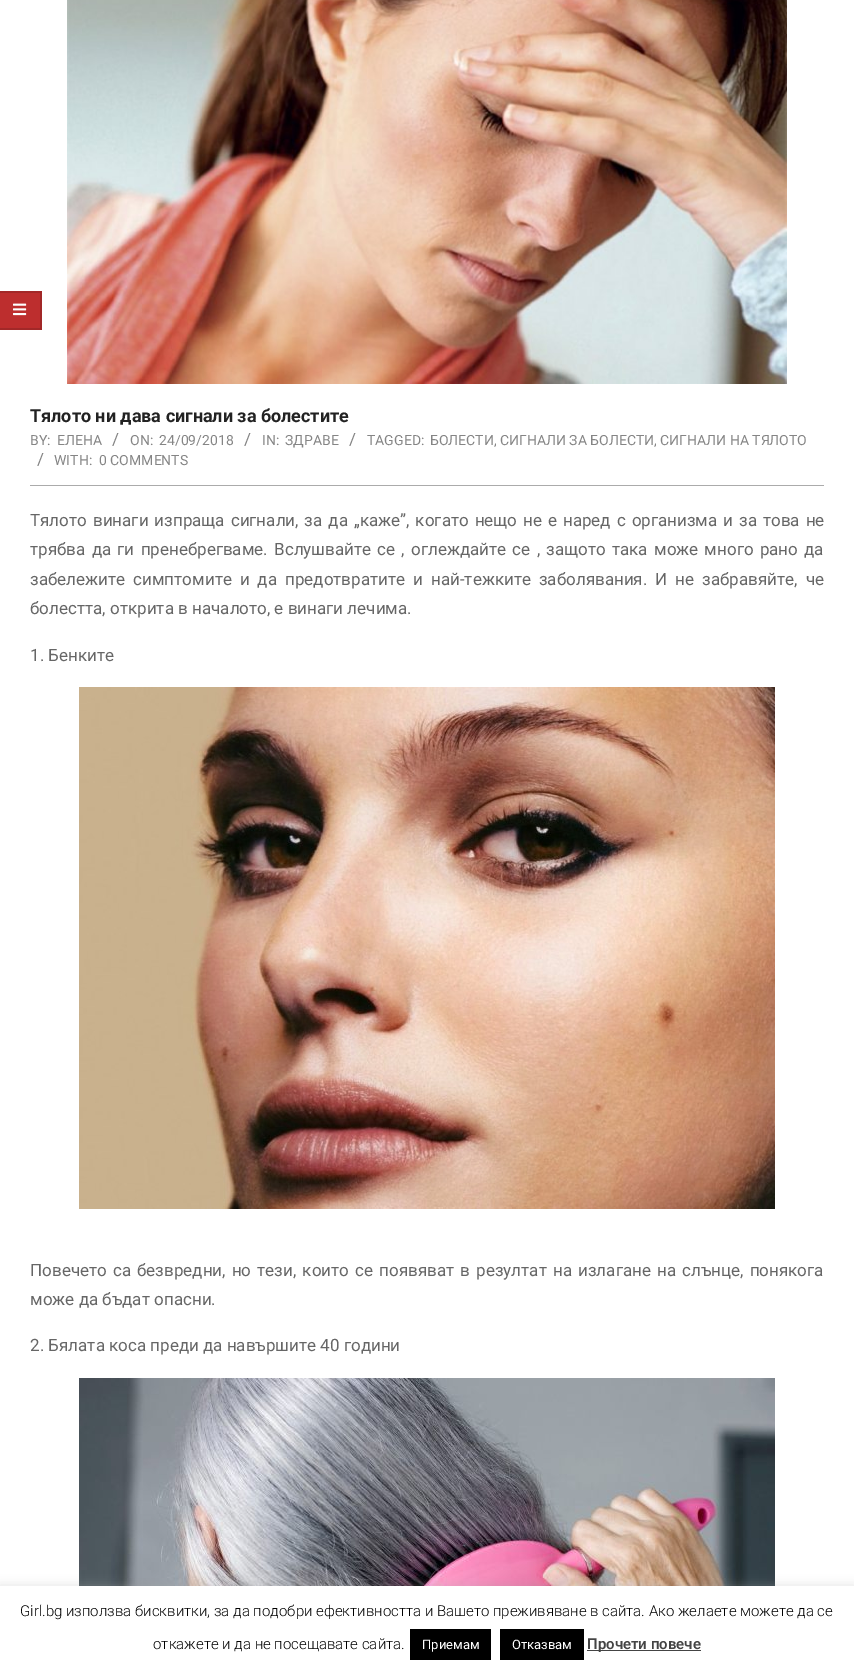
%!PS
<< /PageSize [854 1672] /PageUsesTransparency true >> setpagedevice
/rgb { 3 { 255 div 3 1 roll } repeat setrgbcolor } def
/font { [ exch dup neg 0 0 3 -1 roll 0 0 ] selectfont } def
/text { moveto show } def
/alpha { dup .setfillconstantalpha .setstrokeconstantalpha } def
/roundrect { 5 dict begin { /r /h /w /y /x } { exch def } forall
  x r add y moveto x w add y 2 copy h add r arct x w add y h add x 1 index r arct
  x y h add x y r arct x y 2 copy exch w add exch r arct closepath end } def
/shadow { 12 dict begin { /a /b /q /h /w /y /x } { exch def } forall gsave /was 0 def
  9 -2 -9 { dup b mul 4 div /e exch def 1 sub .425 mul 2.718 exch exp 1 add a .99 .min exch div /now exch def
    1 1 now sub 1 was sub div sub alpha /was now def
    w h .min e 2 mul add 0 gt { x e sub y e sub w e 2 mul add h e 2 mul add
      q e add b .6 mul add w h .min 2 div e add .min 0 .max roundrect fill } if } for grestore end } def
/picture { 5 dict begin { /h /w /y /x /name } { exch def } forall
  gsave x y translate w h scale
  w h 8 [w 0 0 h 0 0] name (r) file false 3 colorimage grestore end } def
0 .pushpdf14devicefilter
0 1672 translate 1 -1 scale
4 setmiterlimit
255 255 255 rgb
0 0 854 1672 rectfill
189 46 46 rgb
0 291 42 39 rectfill
163 40 40 rgb
0 291 moveto 42 0 rlineto -2 2 rlineto -40 0 rlineto closepath fill
0.14 alpha
0 0 0 rgb
42 291 moveto 0 39 rlineto -2 -2 rlineto 0 -35 rlineto closepath fill
42 330 moveto -42 0 rlineto 0 -2 rlineto 40 0 rlineto closepath fill
1 alpha
(img_01.rgb) 13 303 14 13 picture
(img_02.rgb) 67 0 720 384 picture
171 171 171 rgb
30 485 794 1 rectfill
(img_03.rgb) 79 687 696 522 picture
(img_04.rgb) 79 1378 696 208 picture
172 171 171 rgb
0 1585 854 86 0 5 0.3 shadow
255 255 255 rgb
0 1586 854 86 rectfill
0 0 0 rgb
410 1629 81 31 rectfill
500 1629 84 31 rectfill
68 68 68 rgb
587 1650 114 1 rectfill
/Roboto-Bold 18 font
34 34 34 rgb
(Тялото ни дава сигнали за болестите) 30 422 text
/Roboto-Regular 14 font
133 133 133 rgb
(BY:) 30 445 text
(ЕЛЕНА) 57 445 text
/Roboto-Regular 17 font
(/) 112 445 text
/Roboto-Regular 14 font
(ON:) 130 445 text
(24/09/2018) 159 445 text
/Roboto-Regular 17 font
(/) 244 445 text
/Roboto-Regular 14 font
(IN:) 262 445 text
(ЗДРАВЕ) 285 445 text
/Roboto-Regular 17 font
(/) 349 445 text
/Roboto-Regular 14 font
(TAGGED:) 367 445 text
(БОЛЕСТИ, СИГНАЛИ ЗА БОЛЕСТИ, СИГНАЛИ НА ТЯЛОТО) 430 445 text
/Roboto-Regular 17 font
(/) 37 465 text
/Roboto-Regular 14 font
(WITH:) 54 465 text
(0 COMMENTS) 99 465 text
/Roboto-Regular 17 font
102 102 102 rgb
30 526 moveto 1.75 0 32 (Тялото винаги изпраща сигнали, за да „каже”, когато нещо не е наред с организма и за това не) widthshow
30 555 moveto 2 0 32 (трябва да ги пренебрегваме. Вслушвайте се , оглеждайте се , защото така може много рано да) widthshow
30 585 moveto 3.75 0 32 (забележите симптомите и да предотвратите и най-тежките заболявания. И не забравяйте, че) widthshow
(болестта, открита в началото, е винаги лечима.) 30 614 text
(1. Бенките) 30 661 text
30 1276 moveto 1.9 0 32 (Повечето са безвредни, но тези, които се появяват в резултат на излагане на слънце, понякога) widthshow
(може да бъдат опасни.) 30 1305 text
(2. Бялата коса преди да навършите 40 години) 30 1351 text
/Roboto-Light 15 font
0 0 0 rgb
(Girl.bg използва бисквитки, за да подобри ефективността и Вашето преживяване в сайта. Ако желаете можете да се) 20 1616 text
(откажете и да не посещавате сайта.) 153 1649 text
/Roboto-Regular 13 font
255 255 255 rgb
(Приемам) 422 1649 text
(Отказвам) 512 1649 text
/Roboto-SemiBold 15 font
68 68 68 rgb
(Прочети повече) 587 1649 text
.poppdf14devicefilter showpage
